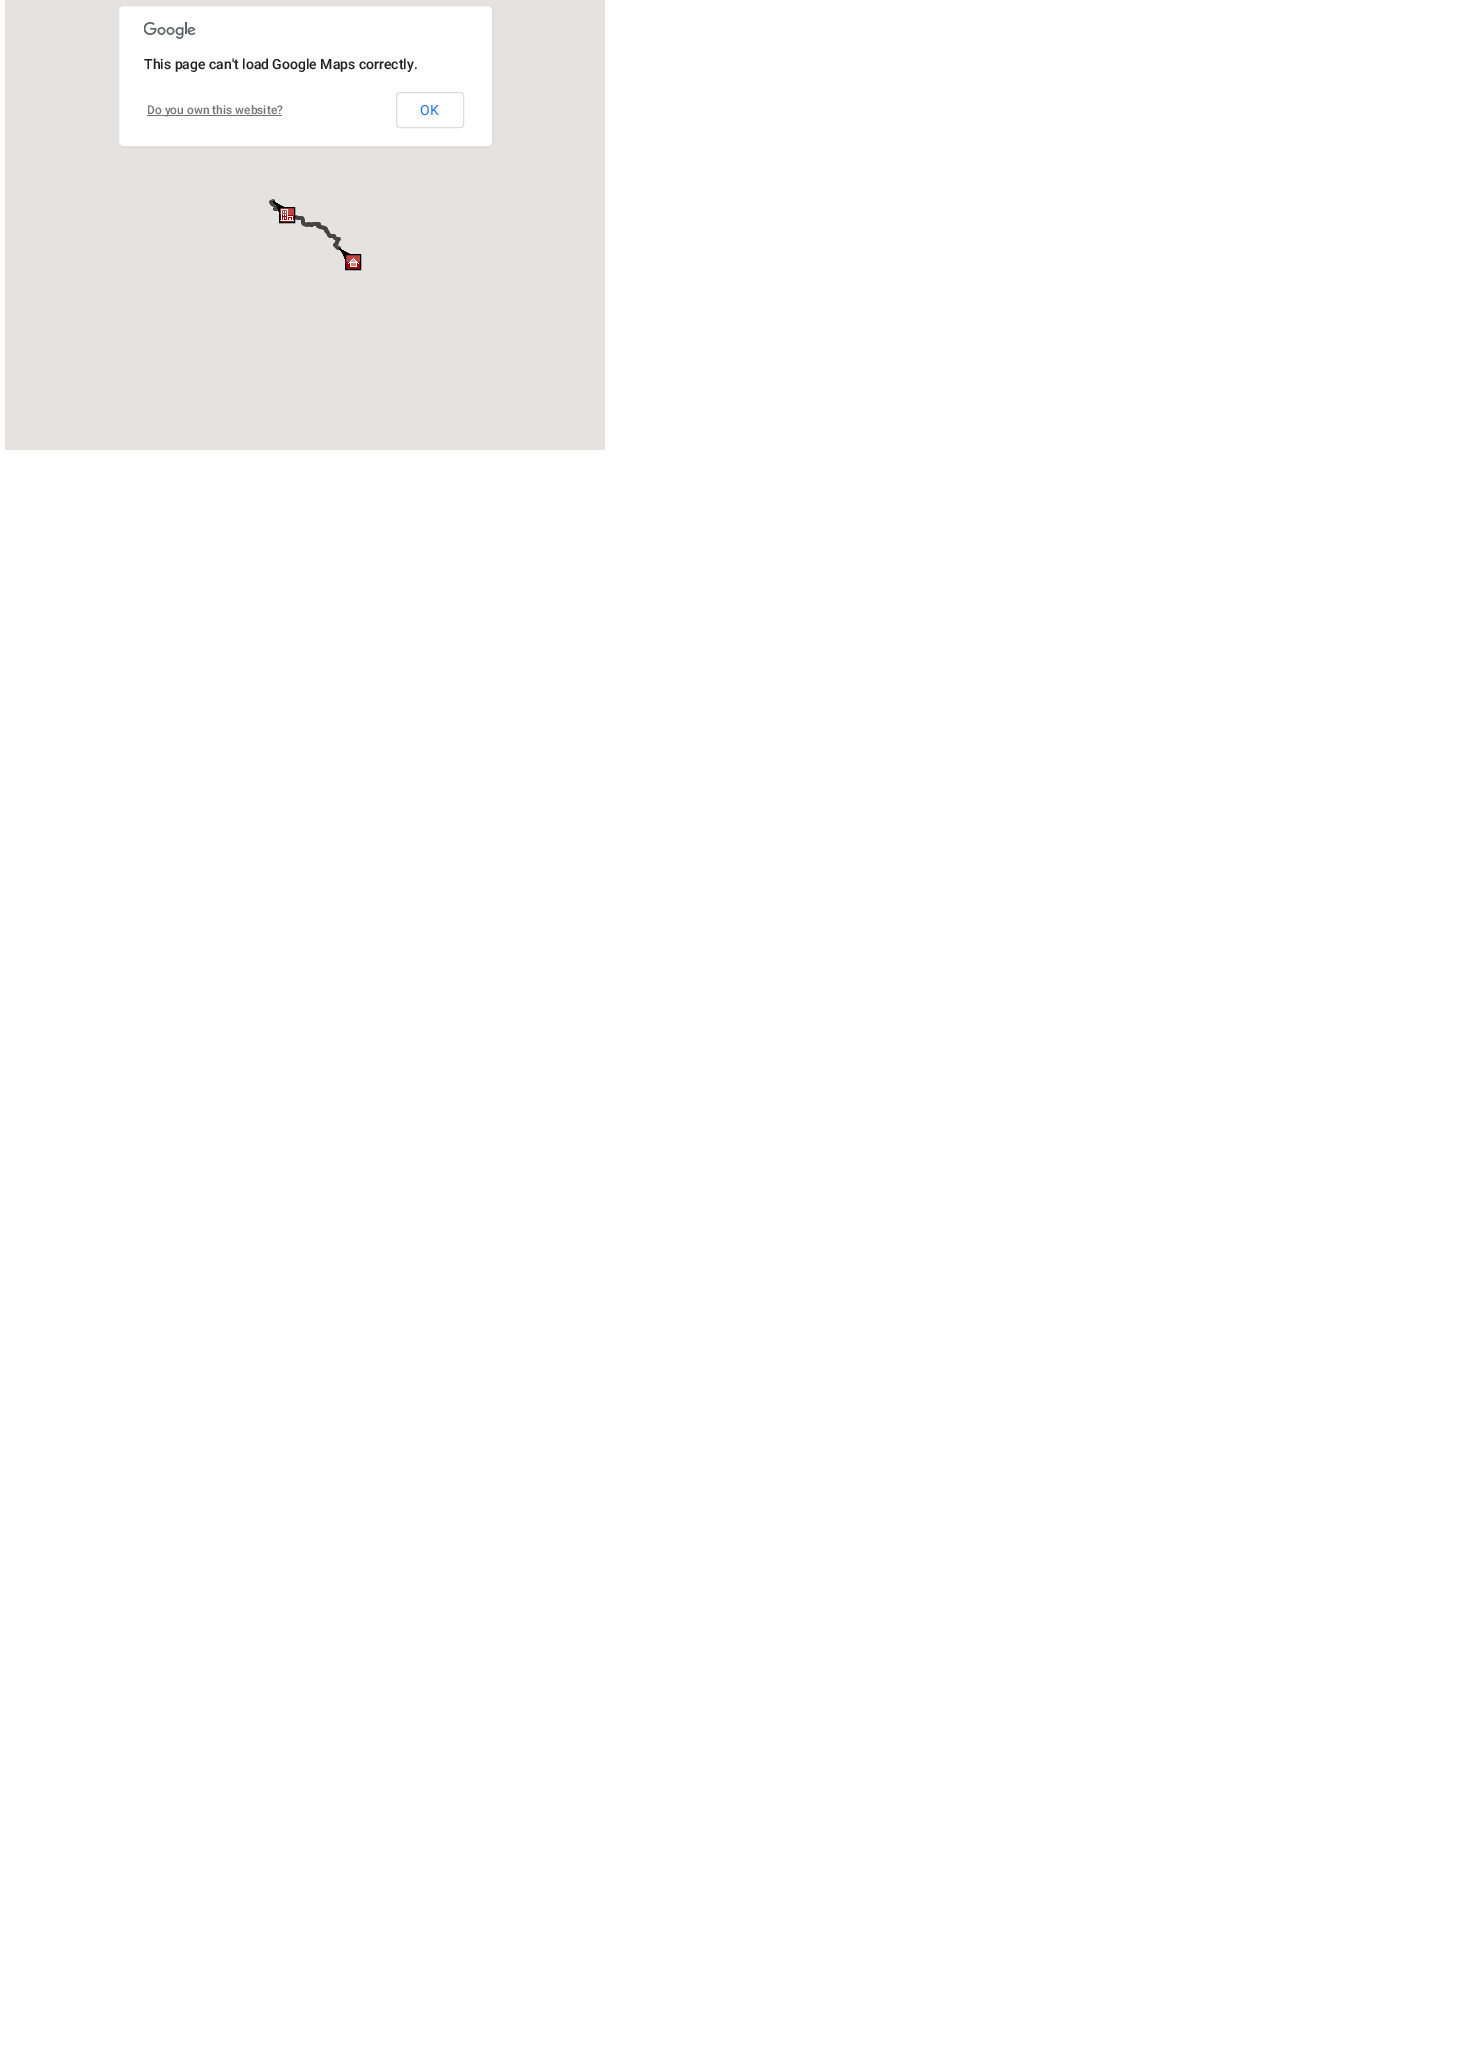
%!PS
<< /PageSize [1458 2054] /PageUsesTransparency true >> setpagedevice
/rgb { 3 { 255 div 3 1 roll } repeat setrgbcolor } def
/font { [ exch dup neg 0 0 3 -1 roll 0 0 ] selectfont } def
/text { moveto show } def
/alpha { dup .setfillconstantalpha .setstrokeconstantalpha } def
/roundrect { 5 dict begin { /r /h /w /y /x } { exch def } forall
  x r add y moveto x w add y 2 copy h add r arct x w add y h add x 1 index r arct
  x y h add x y r arct x y 2 copy exch w add exch r arct closepath end } def
/picture { 5 dict begin { /h /w /y /x /name } { exch def } forall
  gsave x y translate w h scale
  w h 8 [w 0 0 h 0 0] name (r) file false 3 colorimage grestore end } def
0 .pushpdf14devicefilter
0 2054 translate 1 -1 scale
4 setmiterlimit
255 255 255 rgb
0 0 1458 2054 rectfill
229 227 223 rgb
5 0 600 450 rectfill
(img_01.rgb) 269 199 9 12 picture
(img_02.rgb) 295 214 23 14 picture
(img_03.rgb) 318 222 23 28 picture
0 0 0 rgb
273 201 2 2 rectfill
(img_04.rgb) 274 202 11 11 picture
(img_05.rgb) 280 208 14 14 picture
279.5 207.5 15 15 rectstroke
339 248 2 2 rectfill
(img_06.rgb) 340 249 11 11 picture
(img_07.rgb) 346 255 14 14 picture
345.5 254.5 15 15 rectstroke
255 255 255 rgb
118 5 375 142 5 roundrect fill
0.12 alpha
0 0 0 rgb
118.5 5.5 374 141 4.5 roundrect stroke
1 alpha
(img_08.rgb) 144 22 52 17 picture
117 117 117 rgb
147 115 135 1 rectfill
218 220 224 rgb
396.5 92.5 67 35 3.5 roundrect stroke
/Roboto-Medium 14 font
33 33 33 rgb
(This page can't load Google Maps correctly.) 144 69 text
/Roboto-Medium 12 font
117 117 117 rgb
(Do you own this website?) 147 114 text
/Roboto-Regular 14 font
26 115 232 rgb
(OK) 420 115 text
.poppdf14devicefilter showpage
